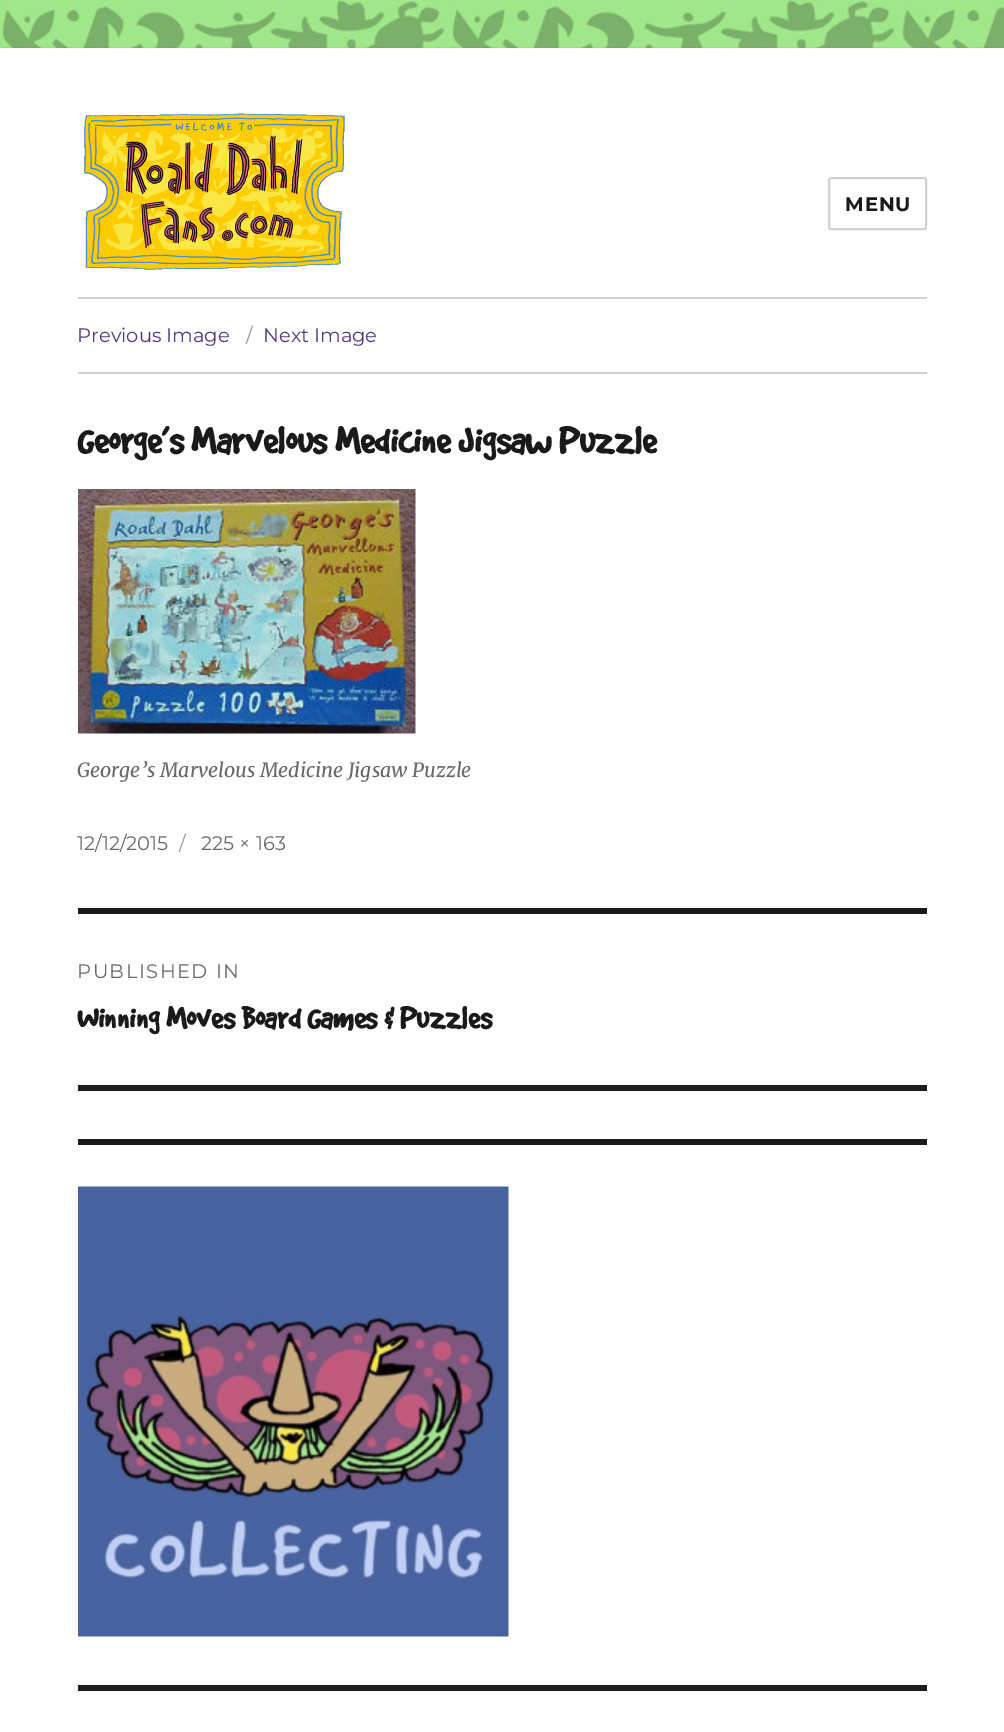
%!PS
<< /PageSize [1004 1732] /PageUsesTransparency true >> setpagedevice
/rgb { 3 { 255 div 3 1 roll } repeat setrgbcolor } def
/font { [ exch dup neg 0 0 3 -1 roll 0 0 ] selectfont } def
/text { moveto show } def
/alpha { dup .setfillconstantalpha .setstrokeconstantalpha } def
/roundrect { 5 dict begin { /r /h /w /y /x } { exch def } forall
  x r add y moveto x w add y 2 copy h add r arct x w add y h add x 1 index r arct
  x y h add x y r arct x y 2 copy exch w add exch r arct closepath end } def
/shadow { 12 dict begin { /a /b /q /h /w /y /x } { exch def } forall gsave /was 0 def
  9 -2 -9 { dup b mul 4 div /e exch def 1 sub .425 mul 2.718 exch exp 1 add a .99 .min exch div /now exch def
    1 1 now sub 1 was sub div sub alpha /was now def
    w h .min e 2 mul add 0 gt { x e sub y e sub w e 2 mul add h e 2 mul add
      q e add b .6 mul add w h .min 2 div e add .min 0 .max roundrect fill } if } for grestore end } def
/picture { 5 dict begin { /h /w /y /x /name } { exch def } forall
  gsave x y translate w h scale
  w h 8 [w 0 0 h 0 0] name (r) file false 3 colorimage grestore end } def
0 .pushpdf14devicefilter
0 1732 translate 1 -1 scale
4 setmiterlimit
255 255 255 rgb
0 0 1004 1732 rectfill
(img_01.rgb) 0 0 1004 48 picture
gsave
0 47 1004 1 rectclip
0 0 0 rgb
0 48 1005 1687 0 1 0.15 shadow
grestore
(img_02.rgb) 83 113 262 158 picture
209 209 209 rgb
2 setlinewidth
829 178 97 51 2 roundrect stroke
78 297 849 2 rectfill
78 372 849 2 rectfill
(img_03.rgb) 78 489 338 245 picture
26 26 26 rgb
78 908 849 6 rectfill
78 1085 849 6 rectfill
78 1139 849 6 rectfill
(img_04.rgb) 78 1186 431 451 picture
78 1685 849 6 rectfill
/Montserrat-Thin 19.5 font
845 211 moveto 1 0 (MENU) ashow
/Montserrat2-Thin 19.5 font
78 56 126 rgb
(Previous Image) 77 342 text
149 149 149 rgb
(/) 246 342 text
78 56 126 rgb
(Next Image) 263 342 text
/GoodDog-Bold 42 font
26 26 26 rgb
(George’s Marvelous Medicine Jigsaw Puzzle) 77 454 text
/Merriweather-Italic 19.5 font
104 104 104 rgb
(George’s Marvelous Medicine Jigsaw Puzzle) 77 777 text
/Montserrat2-Thin 19.5 font
(12/12/2015) 77 850 text
149 149 149 rgb
(/) 179 850 text
104 104 104 rgb
(225 × 163) 201 850 text
77 978 moveto 1.5 0 (PUBLISHED IN) ashow
/GoodDog-Bold 34.5 font
26 26 26 rgb
(Winning Moves Board Games & Puzzles) 77 1029 text
.poppdf14devicefilter showpage
